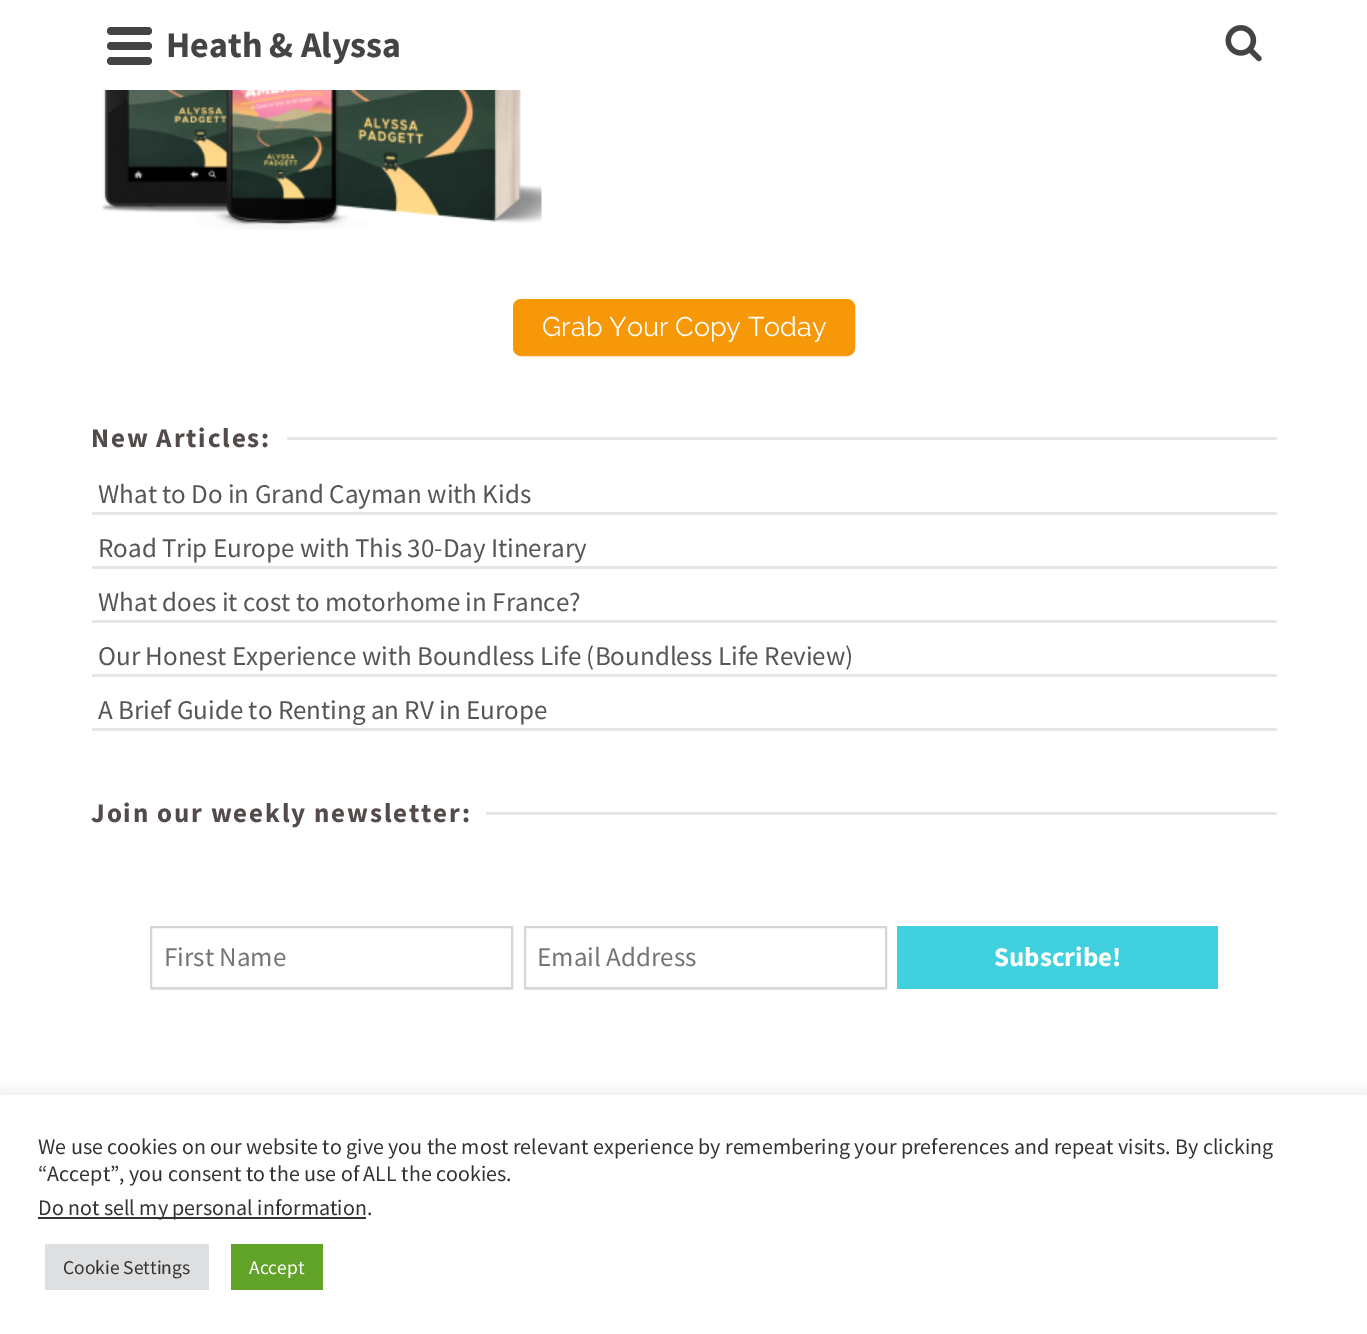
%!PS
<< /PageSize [1367 1334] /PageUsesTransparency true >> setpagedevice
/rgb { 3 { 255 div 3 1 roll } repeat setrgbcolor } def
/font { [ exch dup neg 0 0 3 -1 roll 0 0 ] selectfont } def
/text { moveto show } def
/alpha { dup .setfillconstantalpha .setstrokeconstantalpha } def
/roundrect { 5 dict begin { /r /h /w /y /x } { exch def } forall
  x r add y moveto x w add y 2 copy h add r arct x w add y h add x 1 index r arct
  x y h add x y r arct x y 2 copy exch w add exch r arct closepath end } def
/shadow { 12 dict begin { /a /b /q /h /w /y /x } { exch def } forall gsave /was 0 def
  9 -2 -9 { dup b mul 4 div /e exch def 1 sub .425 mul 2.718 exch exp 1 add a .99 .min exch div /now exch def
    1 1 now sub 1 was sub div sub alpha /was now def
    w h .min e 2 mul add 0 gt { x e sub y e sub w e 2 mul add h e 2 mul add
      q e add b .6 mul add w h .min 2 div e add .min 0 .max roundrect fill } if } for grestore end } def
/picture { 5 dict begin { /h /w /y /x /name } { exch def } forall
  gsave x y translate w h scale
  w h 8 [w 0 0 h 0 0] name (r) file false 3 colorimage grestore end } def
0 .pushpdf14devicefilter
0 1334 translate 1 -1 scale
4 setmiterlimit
255 255 255 rgb
0 0 1367 1334 rectfill
68 68 68 rgb
107 27 45 8 4 roundrect fill
107 42 45 8 4 roundrect fill
107 57 45 8 4 roundrect fill
(img_01.rgb) 1225 25 37 37 picture
(img_02.rgb) 102 90 440 140 picture
247 152 9 rgb
514 300 340 55 7 roundrect gsave fill grestore
2 setlinewidth
stroke
230 230 230 rgb
287 437 990 3 rectfill
92 512 1185 3 rectfill
92 566 1185 3 rectfill
92 620 1185 3 rectfill
92 674 1185 3 rectfill
92 728 1185 3 rectfill
486 812 791 3 rectfill
150 989 363 1 rectfill
214 214 214 rgb
151 927 361 61 rectstroke
230 230 230 rgb
524 988 moveto 0 2 rlineto 363 0 rlineto 0 -63 rlineto -1 0 rlineto 0 61 rlineto closepath fill
214 214 214 rgb
525 927 361 61 rectstroke
65 208 221 rgb
897 926 321 63 rectfill
172 171 171 rgb
0 1094 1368 240 0 7.5 0.3 shadow
255 255 255 rgb
0 1095 1367 239 rectfill
51 51 51 rgb
38 1217 328 2 rectfill
222 223 224 rgb
45 1244 164 46 rectfill
97 162 41 rgb
231 1244 92 46 rectfill
/SourceSansPro-Bold 36 font
68 68 68 rgb
(Heath & Alyssa) 166 57 text
/Raleway-Regular 27 font
255 255 255 rgb
(Grab Your Copy Today) 542 336 text
/SourceSansPro-Bold 27 font
84 74 74 rgb
91 447 moveto 1.8 0 (New Articles:) ashow
/SourceSansPro-Regular 27 font
85 85 85 rgb
(What to Do in Grand Cayman with Kids) 98 503 text
(Road Trip Europe with This 30-Day Itinerary) 98 557 text
(What does it cost to motorhome in France?) 98 611 text
(Our Honest Experience with Boundless Life \(Boundless Life Review\)) 98 665 text
(A Brief Guide to Renting an RV in Europe) 98 719 text
/SourceSansPro-Bold 27 font
84 74 74 rgb
91 822 moveto 1.8 0 (Join our weekly newsletter:) ashow
/SourceSansPro-Regular 27 font
117 117 117 rgb
(First Name) 164 966 text
(Email Address) 537 966 text
/SourceSansPro-Bold 27 font
255 255 255 rgb
(Subscribe!) 994 966 text
/SourceSansPro-Regular 22 font
51 51 51 rgb
(We use cookies on our website to give you the most relevant experience by remembering your preferences and repeat visits. By clicking) 38 1154 text
(“Accept”, you consent to the use of ALL the cookies.) 38 1181 text
(Do not sell my personal information.) 38 1215 text
/SourceSansPro-Regular 19.5 font
(Cookie Settings) 63 1274 text
255 255 255 rgb
(Accept) 249 1274 text
.poppdf14devicefilter showpage
